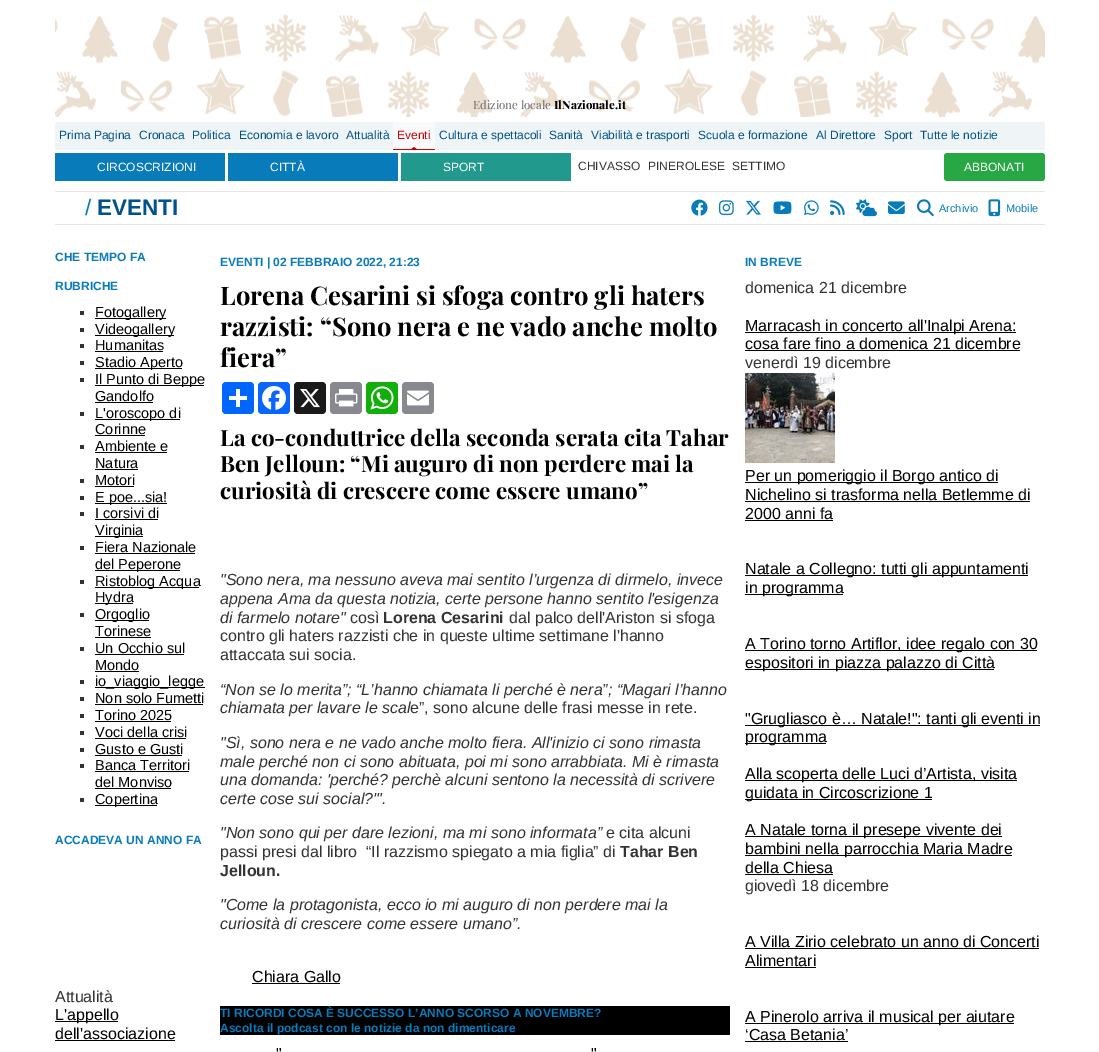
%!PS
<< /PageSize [1099 1052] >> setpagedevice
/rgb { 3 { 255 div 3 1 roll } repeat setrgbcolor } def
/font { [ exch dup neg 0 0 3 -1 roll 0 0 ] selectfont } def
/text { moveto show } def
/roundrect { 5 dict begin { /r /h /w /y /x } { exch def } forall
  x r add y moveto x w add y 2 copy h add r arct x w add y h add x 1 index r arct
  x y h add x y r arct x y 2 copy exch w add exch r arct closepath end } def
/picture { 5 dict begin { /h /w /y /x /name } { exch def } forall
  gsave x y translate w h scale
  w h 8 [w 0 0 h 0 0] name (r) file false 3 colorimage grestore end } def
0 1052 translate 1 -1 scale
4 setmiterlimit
255 255 255 rgb
0 0 1099 1052 rectfill
(img_01.rgb) 55 12 990 105 picture
239 244 247 rgb
55 122 990 28 rectfill
247 249 251 rgb
393 122 42 27 rectfill
(img_02.rgb) 411 147 6 2 picture
204 0 0 rgb
393 149 42 1 rectfill
8 123 187 rgb
55 153 170 28 rectfill
228 153 170 28 rectfill
34 153 141 rgb
401 153 170 28 rectfill
40 167 69 rgb
944 153 101 28 3 roundrect fill
229 229 229 rgb
55 191 990 1 rectfill
55 224 990 1 rectfill
(img_03.rgb) 691 199 17 17 picture
(img_04.rgb) 719 200 15 16 picture
(img_05.rgb) 746 200 15 15 picture
(img_06.rgb) 773 201 19 13 picture
(img_07.rgb) 804 200 15 15 picture
(img_08.rgb) 830 200 15 15 picture
(img_09.rgb) 856 199 21 18 picture
(img_10.rgb) 888 201 17 13 picture
(img_11.rgb) 917 199 17 18 picture
(img_12.rgb) 988 199 13 18 picture
51 51 51 rgb
80 311 4 4 rectfill
0 0 0 rgb
95 318 71 1 rectfill
51 51 51 rgb
80 328 4 4 rectfill
0 0 0 rgb
95 335 79 1 rectfill
51 51 51 rgb
80 344 4 4 rectfill
0 0 0 rgb
95 351 68 1 rectfill
51 51 51 rgb
80 361 4 4 rectfill
0 0 0 rgb
95 368 87 1 rectfill
51 51 51 rgb
80 378 4 4 rectfill
0 0 0 rgb
95 385 109 1 rectfill
95 402 58 1 rectfill
51 51 51 rgb
80 412 4 4 rectfill
0 0 0 rgb
95 419 85 1 rectfill
95 435 50 1 rectfill
51 51 51 rgb
80 445 4 4 rectfill
0 0 0 rgb
95 452 72 1 rectfill
95 469 43 1 rectfill
51 51 51 rgb
80 479 4 4 rectfill
0 0 0 rgb
95 486 39 1 rectfill
51 51 51 rgb
80 496 4 4 rectfill
0 0 0 rgb
95 503 72 1 rectfill
51 51 51 rgb
80 512 4 4 rectfill
0 0 0 rgb
95 519 63 1 rectfill
95 536 48 1 rectfill
51 51 51 rgb
80 546 4 4 rectfill
0 0 0 rgb
95 553 100 1 rectfill
95 570 85 1 rectfill
51 51 51 rgb
80 580 4 4 rectfill
0 0 0 rgb
95 587 104 1 rectfill
95 603 38 1 rectfill
51 51 51 rgb
80 613 4 4 rectfill
0 0 0 rgb
95 620 54 1 rectfill
95 637 56 1 rectfill
51 51 51 rgb
80 647 4 4 rectfill
0 0 0 rgb
95 654 89 1 rectfill
95 671 44 1 rectfill
51 51 51 rgb
80 680 4 4 rectfill
0 0 0 rgb
95 687 110 1 rectfill
51 51 51 rgb
80 697 4 4 rectfill
0 0 0 rgb
95 704 108 1 rectfill
51 51 51 rgb
80 714 4 4 rectfill
0 0 0 rgb
95 721 76 1 rectfill
51 51 51 rgb
80 731 4 4 rectfill
0 0 0 rgb
95 738 91 1 rectfill
51 51 51 rgb
80 748 4 4 rectfill
0 0 0 rgb
95 755 87 1 rectfill
51 51 51 rgb
80 764 4 4 rectfill
0 0 0 rgb
95 771 94 1 rectfill
95 788 76 1 rectfill
51 51 51 rgb
80 798 4 4 rectfill
0 0 0 rgb
95 805 62 1 rectfill
55 1021 63 1 rectfill
55 1040 120 1 rectfill
1 102 255 rgb
222 382 32 32 4 roundrect fill
255 255 255 rgb
236 389 4 18 rectfill
229 396 18 4 rectfill
8 102 255 rgb
258 382 32 32 4 roundrect fill
(img_13.rgb) 262 386 24 24 picture
26 26 26 rgb
294 382 32 32 4 roundrect fill
(img_14.rgb) 300 389 20 19 picture
136 137 144 rgb
330 382 32 32 4 roundrect fill
(img_15.rgb) 335 389 23 18 picture
18 175 10 rgb
366 382 32 32 4 roundrect fill
(img_16.rgb) 370 386 24 24 picture
136 137 144 rgb
402 382 32 32 4 roundrect fill
(img_17.rgb) 407 390 22 16 picture
0 0 0 rgb
252 983 88 1 rectfill
220 1006 510 29 rectfill
745 332 271 1 rectfill
745 350 275 1 rectfill
(img_18.rgb) 745 373 90 90 picture
745 482 253 1 rectfill
745 501 285 1 rectfill
745 520 88 1 rectfill
745 575 283 1 rectfill
745 594 98 1 rectfill
745 650 292 1 rectfill
745 669 249 1 rectfill
745 725 295 1 rectfill
745 743 81 1 rectfill
745 780 272 1 rectfill
745 799 187 1 rectfill
745 836 257 1 rectfill
745 855 267 1 rectfill
745 874 88 1 rectfill
745 948 294 1 rectfill
745 967 71 1 rectfill
745 1023 269 1 rectfill
745 1041 103 1 rectfill
/PlayfairDisplay-Regular 11.5 font
102 102 102 rgb
(Edizione locale) 473 109 text
/PlayfairDisplay-ExtraBold 11.5 font
0 0 0 rgb
(IlNazionale.it) 554 109 text
/LiberationSans-Regular 12 font
0 82 138 rgb
(Prima Pagina) 59 139 text
(Cronaca) 139 139 text
(Politica) 192 139 text
(Economia e lavoro) 239 139 text
(Attualità) 346 139 text
204 0 0 rgb
(Eventi) 397 139 text
0 82 138 rgb
(Cultura e spettacoli) 439 139 text
(Sanità) 549 139 text
(Viabilità e trasporti) 591 139 text
(Scuola e formazione) 698 139 text
(Al Direttore) 816 139 text
(Sport) 884 139 text
(Tutte le notizie) 920 139 text
255 255 255 rgb
(CIRCOSCRIZIONI) 97 171 text
(CITTÀ) 270 171 text
(SPORT) 443 171 text
51 51 51 rgb
(CHIVASSO) 578 170 text
(PINEROLESE) 648 170 text
(SETTIMO) 732 170 text
255 255 255 rgb
(ABBONATI) 964 171 text
/LiberationSans-Regular 22.4 font
8 123 187 rgb
(/) 85 215 text
/LiberationSans-Bold 22.4 font
0 82 138 rgb
(EVENTI) 97 215 text
/LiberationSans-Regular 11 font
8 123 187 rgb
(Archivio) 939 212 text
(Mobile) 1006 212 text
/LiberationSans-Bold 12 font
(CHE TEMPO FA) 55 261 text
(RUBRICHE) 55 290 text
/LiberationSans-Regular 14.5 font
0 0 0 rgb
(Fotogallery) 95 317 text
(Videogallery) 95 334 text
(Humanitas) 95 350 text
(Stadio Aperto) 95 367 text
(Il Punto di Beppe) 95 384 text
(Gandolfo) 95 401 text
(L'oroscopo di) 95 418 text
(Corinne) 95 434 text
(Ambiente e) 95 451 text
(Natura) 95 468 text
(Motori) 95 485 text
(E poe...sia!) 95 502 text
(I corsivi di) 95 518 text
(Virginia) 95 535 text
(Fiera Nazionale) 95 552 text
(del Peperone) 95 569 text
(Ristoblog Acqua) 95 586 text
(Hydra) 95 602 text
(Orgoglio) 95 619 text
(Torinese) 95 636 text
(Un Occhio sul) 95 653 text
(Mondo) 95 670 text
gsave
55 235 150 583 rectclip
(io_viaggio_legger) 95 686 text
grestore
(Non solo Fumetti) 95 703 text
(Torino 2025) 95 720 text
(Voci della crisi) 95 737 text
(Gusto e Gusti) 95 754 text
(Banca Territori) 95 770 text
(del Monviso) 95 787 text
(Copertina) 95 804 text
/LiberationSans-Bold 12 font
8 123 187 rgb
(ACCADEVA UN ANNO FA) 55 844 text
/LiberationSans-Regular 16 font
51 51 51 rgb
(Attualità) 55 1002 text
0 0 0 rgb
(L'appello) 55 1020 text
(dell'associazione) 55 1039 text
/LiberationSans-Bold 12 font
8 123 187 rgb
(EVENTI | 02 FEBBRAIO 2022, 21:23) 220 266 text
/PlayfairDisplay-Bold 25.6 font
0 0 0 rgb
(Lorena Cesarini si sfoga contro gli haters) 220 305 text
(razzisti: “Sono nera e ne vado anche molto) 220 336 text
(fiera”) 220 367 text
/PlayfairDisplay-Bold 22.4 font
(La co-conduttrice della seconda serata cita Tahar) 220 446 text
(Ben Jelloun: “Mi auguro di non perdere mai la) 220 472 text
(curiosità di crescere come essere umano”) 220 499 text
/LiberationSans-Italic 16 font
51 51 51 rgb
("Sono nera, ma nessuno aveva mai sentito l’urgenza di dirmelo, invece) 220 585 text
(appena Ama da questa notizia, certe persone hanno sentito l'esigenza) 220 604 text
(di farmelo notare") 220 623 text
/LiberationSans-Regular 16 font
(così) 350 623 text
/LiberationSans-Bold 16 font
(Lorena Cesarini) 383 623 text
/LiberationSans-Regular 16 font
(dal palco dell'Ariston si sfoga) 509 623 text
(contro gli haters razzisti che in queste ultime settimane l'hanno) 220 641 text
(attaccata sui socia.) 220 660 text
/LiberationSans-Italic 16 font
(“Non se lo merita”; “L’hanno chiamata li perché è nera”; “Magari l’hanno) 220 695 text
(chiamata per lavare le scal) 220 713 text
/LiberationSans-Regular 16 font
(e”, sono alcune delle frasi messe in rete.) 410 713 text
/LiberationSans-Italic 16 font
("Sì, sono nera e ne vado anche molto fiera. All'inizio ci sono rimasta) 220 748 text
(male perché non ci sono abituata, poi mi sono arrabbiata. Mi è rimasta) 220 767 text
(una domanda: 'perché? perchè alcuni sentono la necessità di scrivere) 220 785 text
(certe cose sui social?'".) 220 804 text
("Non sono qui per dare lezioni, ma mi sono informata”) 220 838 text
/LiberationSans-Regular 16 font
(e cita alcuni) 606 838 text
(passi presi dal libro  “Il razzismo spiegato a mia figlia” di) 220 857 text
/LiberationSans-Bold 16 font
(Tahar Ben) 620 857 text
(Jelloun.) 220 876 text
/LiberationSans-Italic 16 font
("Come la protagonista, ecco io mi auguro di non perdere mai la) 220 910 text
(curiosità di crescere come essere umano”.) 220 929 text
/LiberationSans-Regular 16 font
0 0 0 rgb
(Chiara Gallo) 252 982 text
/LiberationSans-Bold 12 font
8 123 187 rgb
(TI RICORDI COSA È SUCCESSO L’ANNO SCORSO A NOVEMBRE?) 220 1017 text
(Ascolta il podcast con le notizie da non dimenticare) 220 1032 text
/LiberationSans-Regular 16 font
0 0 0 rgb
(") 276 1059 text
(") 591 1059 text
/LiberationSans-Bold 12 font
8 123 187 rgb
(IN BREVE) 745 266 text
/LiberationSans-Regular 16 font
51 51 51 rgb
(domenica 21 dicembre) 745 293 text
0 0 0 rgb
(Marracash in concerto all'Inalpi Arena:) 745 331 text
(cosa fare fino a domenica 21 dicembre) 745 349 text
51 51 51 rgb
(venerdì 19 dicembre) 745 368 text
0 0 0 rgb
(Per un pomeriggio il Borgo antico di) 745 481 text
(Nichelino si trasforma nella Betlemme di) 745 500 text
(2000 anni fa) 745 519 text
(Natale a Collegno: tutti gli appuntamenti) 745 574 text
(in programma) 745 593 text
(A Torino torno Artiflor, idee regalo con 30) 745 649 text
(espositori in piazza palazzo di Città) 745 668 text
("Grugliasco è… Natale!": tanti gli eventi in) 745 724 text
(programma) 745 742 text
(Alla scoperta delle Luci d’Artista, visita) 745 779 text
(guidata in Circoscrizione 1) 745 798 text
(A Natale torna il presepe vivente dei) 745 835 text
(bambini nella parrocchia Maria Madre) 745 854 text
(della Chiesa) 745 873 text
51 51 51 rgb
(giovedì 18 dicembre) 745 891 text
0 0 0 rgb
(A Villa Zirio celebrato un anno di Concerti) 745 947 text
(Alimentari) 745 966 text
(A Pinerolo arriva il musical per aiutare) 745 1022 text
(‘Casa Betania’) 745 1040 text
showpage
